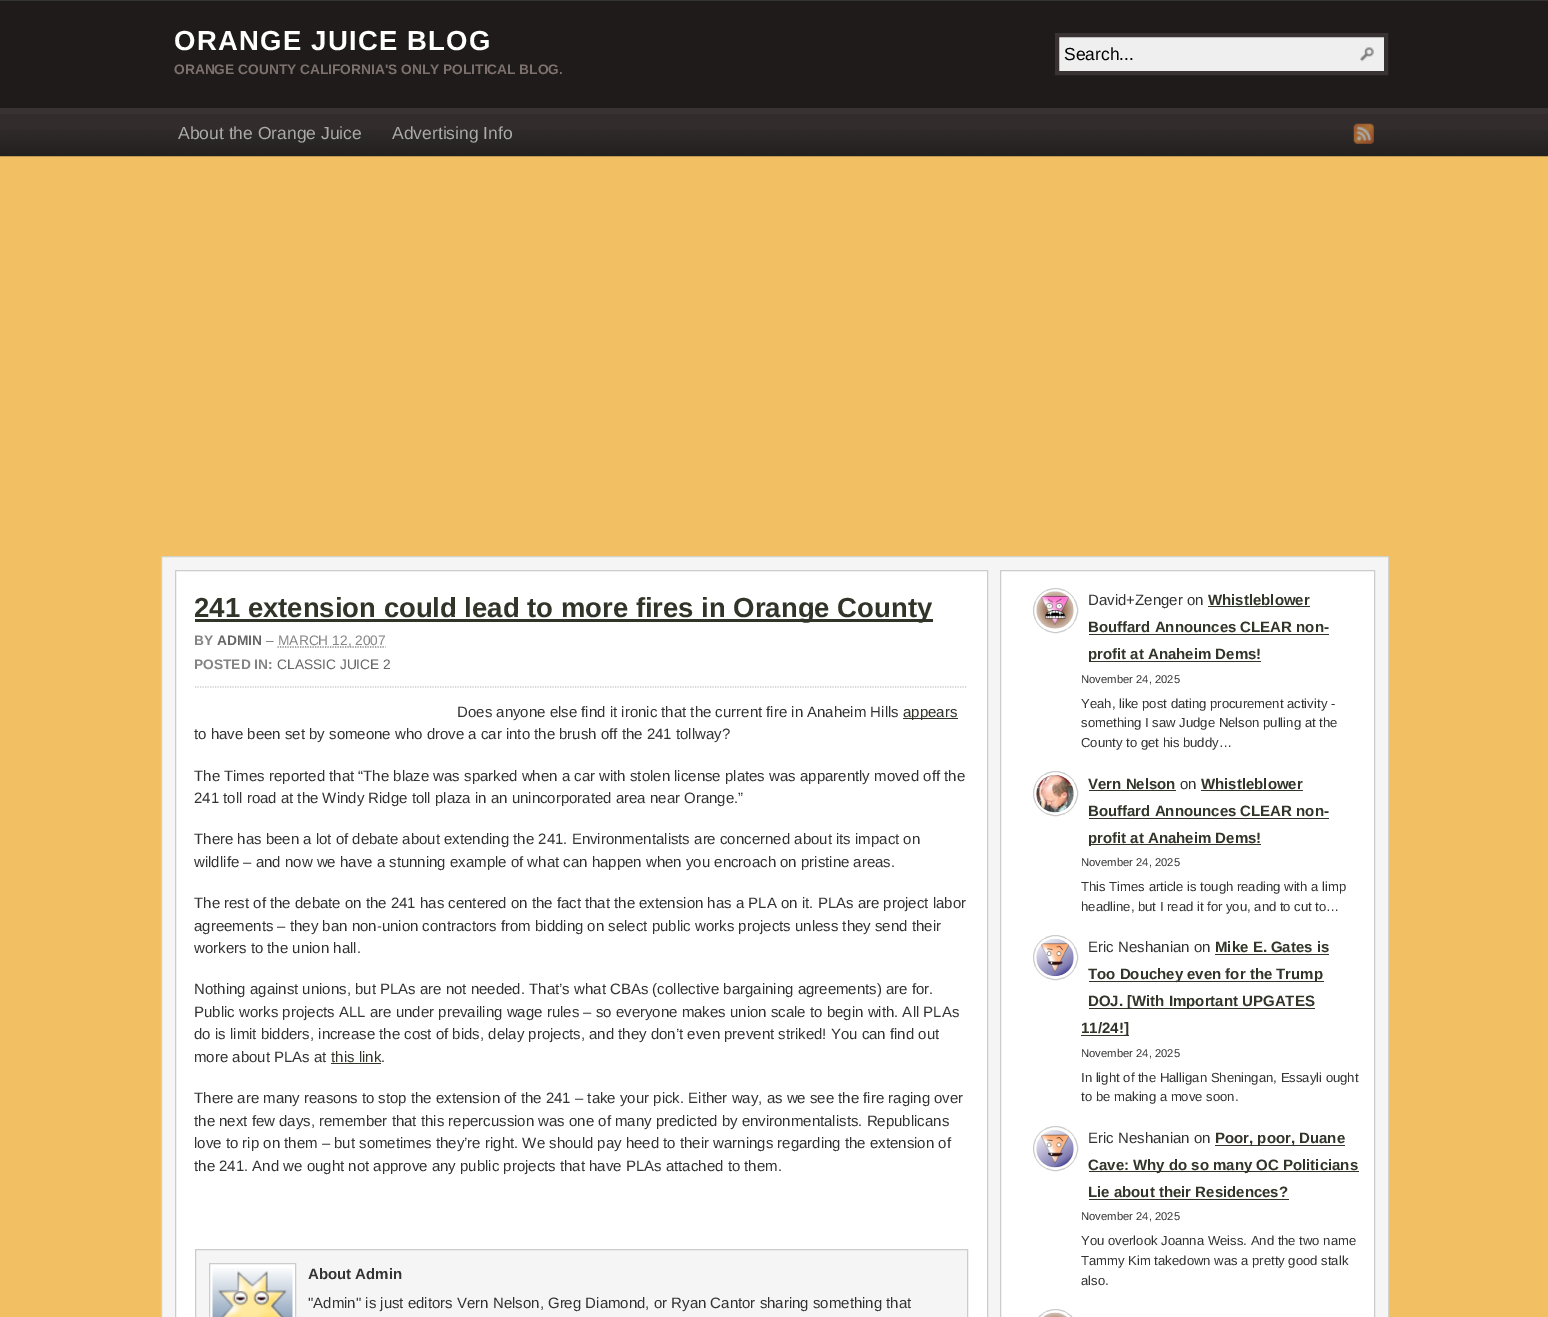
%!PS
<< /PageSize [1548 1317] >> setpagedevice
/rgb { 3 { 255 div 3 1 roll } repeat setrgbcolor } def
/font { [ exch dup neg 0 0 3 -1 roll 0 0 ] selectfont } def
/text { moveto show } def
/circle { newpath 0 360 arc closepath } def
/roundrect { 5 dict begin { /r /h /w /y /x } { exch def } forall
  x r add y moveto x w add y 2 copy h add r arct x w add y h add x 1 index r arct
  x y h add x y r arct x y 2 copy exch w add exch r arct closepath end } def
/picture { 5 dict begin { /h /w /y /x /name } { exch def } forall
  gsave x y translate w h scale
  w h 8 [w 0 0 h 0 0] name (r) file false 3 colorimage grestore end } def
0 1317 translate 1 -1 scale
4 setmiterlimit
242 191 99 rgb
0 0 1548 1317 rectfill
51 51 51 rgb
0 0 1548 1 rectfill
30 27 26 rgb
0 1 1548 107 rectfill
56 51 50 rgb
0 108 1548 6 rectfill
239 239 239 rgb
1057 35 moveto 329 0 rlineto 0 38 rlineto -329 0 rlineto closepath gsave fill grestore
56 51 50 rgb
4 setlinewidth
stroke
(img_01.rgb) 1360 47 14 15 picture
50 44 44 rgb
0 114 1548 16 rectfill
(img_02.rgb) 0 130 1548 27 picture
(img_03.rgb) 1353 123 21 21 picture
245 245 245 rgb
161.5 556.5 moveto 1227 0 rlineto 0 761 rlineto -1227 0 rlineto closepath gsave fill grestore
211 209 199 rgb
1 setlinewidth
stroke
255 255 255 rgb
175.5 570.5 moveto 812 0 rlineto 0 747 rlineto -812 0 rlineto closepath gsave fill grestore
204 204 204 rgb
stroke
49 52 40 rgb
195 619 738 3 rectfill
204 204 204 rgb
1.2 setlinewidth
[1.25 1.25] 0 setdash
195 687 moveto 772.5 0 rlineto stroke
132 132 133 rgb
277.5 647 moveto 108 0 rlineto stroke
49 52 40 rgb
903 718 55 1 rectfill
331 1063 50 1 rectfill
245 245 245 rgb
195.5 1249.5 moveto 772 0 rlineto 0 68 rlineto -772 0 rlineto closepath gsave fill grestore
204 204 204 rgb
1 setlinewidth
[] 0 setdash
stroke
255 255 255 rgb
209.5 1263.5 moveto 86 0 rlineto 0 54 rlineto -86 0 rlineto closepath gsave fill grestore
204 204 204 rgb
stroke
(img_04.rgb) 212 1268 81 49 picture
255 255 255 rgb
1000.5 570.5 moveto 374 0 rlineto 0 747 rlineto -374 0 rlineto closepath gsave fill grestore
204 204 204 rgb
stroke
1055.5 610.5 22 circle stroke
(img_05.rgb) 1036 591 38 38 picture
49 52 40 rgb
1208 606 102 1 rectfill
1089 634 240 1 rectfill
1089 661 172 1 rectfill
204 204 204 rgb
1055.5 793.5 22 circle stroke
(img_06.rgb) 1036 775 38 38 picture
49 52 40 rgb
1089 790 87 1 rectfill
1201 790 102 1 rectfill
1089 818 240 1 rectfill
1089 844 172 1 rectfill
204 204 204 rgb
1055.5 957.5 22 circle stroke
(img_07.rgb) 1036 939 38 38 picture
49 52 40 rgb
1215 954 114 1 rectfill
1089 981 235 1 rectfill
1089 1008 226 1 rectfill
1081 1035 48 1 rectfill
204 204 204 rgb
1055.5 1148.5 22 circle stroke
(img_08.rgb) 1036 1130 38 38 picture
49 52 40 rgb
1215 1145 130 1 rectfill
1089 1171 270 1 rectfill
1089 1199 200 1 rectfill
204 204 204 rgb
1033.5 1309.5 44 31 22 roundrect stroke
(img_09.rgb) 1043 1312 24 5 picture
/LiberationSans-Bold 27.5 font
255 255 255 rgb
174 50 moveto 1.25 0 (ORANGE JUICE BLOG) ashow
/LiberationSans-Bold 13.75 font
125 113 109 rgb
(ORANGE COUNTY CALIFORNIA'S ONLY POLITICAL BLOG.) 174 74 text
/LiberationSans-Regular 17.5 font
0 0 0 rgb
(Search...) 1064 60 text
170 170 170 rgb
(About the Orange Juice) 178 139 text
(Advertising Info) 392 139 text
/LiberationSans-Bold 27.5 font
49 52 40 rgb
(241 extension could lead to more fires in Orange County) 194 617 text
/LiberationSans-Bold 13.75 font
132 132 133 rgb
(BY) 194 645 text
102 102 102 rgb
(ADMIN) 217 645 text
/LiberationSans-Regular 13.75 font
132 132 133 rgb
(–) 266 645 text
(MARCH 12, 2007) 278 645 text
/LiberationSans-Bold 13.75 font
(POSTED IN:) 194 669 text
/LiberationSans-Regular 13.75 font
102 102 102 rgb
(CLASSIC JUICE 2) 277 669 text
/LiberationSans-Regular 15 font
51 51 51 rgb
(Does anyone else find it ironic that the current fire in Anaheim Hills) 457 717 text
49 52 40 rgb
(appears) 903 717 text
51 51 51 rgb
(to have been set by someone who drove a car into the brush off the 241 tollway?) 194 739 text
(The Times reported that “The blaze was sparked when a car with stolen license plates was apparently moved off the) 194 781 text
(241 toll road at the Windy Ridge toll plaza in an unincorporated area near Orange.”) 194 803 text
(There has been a lot of debate about extending the 241. Environmentalists are concerned about its impact on) 194 844 text
(wildlife – and now we have a stunning example of what can happen when you encroach on pristine areas.) 194 867 text
(The rest of the debate on the 241 has centered on the fact that the extension has a PLA on it. PLAs are project labor) 194 908 text
(agreements – they ban non-union contractors from bidding on select public works projects unless they send their) 194 931 text
(workers to the union hall.) 194 953 text
(Nothing against unions, but PLAs are not needed. That’s what CBAs \(collective bargaining agreements\) are for.) 194 994 text
(Public works projects ALL are under prevailing wage rules – so everyone makes union scale to begin with. All PLAs) 194 1017 text
(do is limit bidders, increase the cost of bids, delay projects, and they don’t even prevent striked! You can find out) 194 1039 text
(more about PLAs at) 194 1062 text
49 52 40 rgb
(this link) 331 1062 text
51 51 51 rgb
(.) 381 1062 text
(There are many reasons to stop the extension of the 241 – take your pick. Either way, as we see the fire raging over) 194 1103 text
(the next few days, remember that this repercussion was one of many predicted by environmentalists. Republicans) 194 1126 text
(love to rip on them – but sometimes they’re right. We should pay heed to their warnings regarding the extension of) 194 1148 text
(the 241. And we ought not approve any public projects that have PLAs attached to them.) 194 1171 text
/LiberationSans-Bold 15 font
(About Admin) 308 1279 text
/LiberationSans-Regular 15 font
("Admin" is just editors Vern Nelson, Greg Diamond, or Ryan Cantor sharing something that) 308 1308 text
(David+Zenger on) 1088 605 text
/LiberationSans-Bold 15 font
49 52 40 rgb
(Whistleblower) 1208 605 text
(Bouffard Announces CLEAR non-) 1088 632 text
(profit at Anaheim Dems!) 1088 659 text
/LiberationSans-Regular 11.25 font
51 51 51 rgb
(November 24, 2025) 1081 683 text
/LiberationSans-Regular 13.1 font
(Yeah, like post dating procurement activity -) 1081 708 text
(something I saw Judge Nelson pulling at the) 1081 727 text
(County to get his buddy…) 1081 747 text
/LiberationSans-Bold 15 font
49 52 40 rgb
(Vern Nelson) 1088 789 text
/LiberationSans-Regular 15 font
51 51 51 rgb
(on) 1180 789 text
/LiberationSans-Bold 15 font
49 52 40 rgb
(Whistleblower) 1201 789 text
(Bouffard Announces CLEAR non-) 1088 816 text
(profit at Anaheim Dems!) 1088 843 text
/LiberationSans-Regular 11.25 font
51 51 51 rgb
(November 24, 2025) 1081 866 text
/LiberationSans-Regular 13.1 font
(This Times article is tough reading with a limp) 1081 891 text
(headline, but I read it for you, and to cut to…) 1081 911 text
/LiberationSans-Regular 15 font
(Eric Neshanian on) 1088 952 text
/LiberationSans-Bold 15 font
49 52 40 rgb
(Mike E. Gates is) 1215 952 text
(Too Douchey even for the Trump) 1088 979 text
(DOJ. [With Important UPGATES) 1088 1006 text
(11/24!]) 1081 1033 text
/LiberationSans-Regular 11.25 font
51 51 51 rgb
(November 24, 2025) 1081 1057 text
/LiberationSans-Regular 13.1 font
(In light of the Halligan Sheningan, Essayli ought) 1081 1082 text
(to be making a move soon.) 1081 1101 text
/LiberationSans-Regular 15 font
(Eric Neshanian on) 1088 1143 text
/LiberationSans-Bold 15 font
49 52 40 rgb
(Poor, poor, Duane) 1215 1143 text
(Cave: Why do so many OC Politicians) 1088 1170 text
(Lie about their Residences?) 1088 1197 text
/LiberationSans-Regular 11.25 font
51 51 51 rgb
(November 24, 2025) 1081 1220 text
/LiberationSans-Regular 13.1 font
(You overlook Joanna Weiss. And the two name) 1081 1245 text
(Tammy Kim takedown was a pretty good stalk) 1081 1265 text
(also.) 1081 1285 text
showpage
